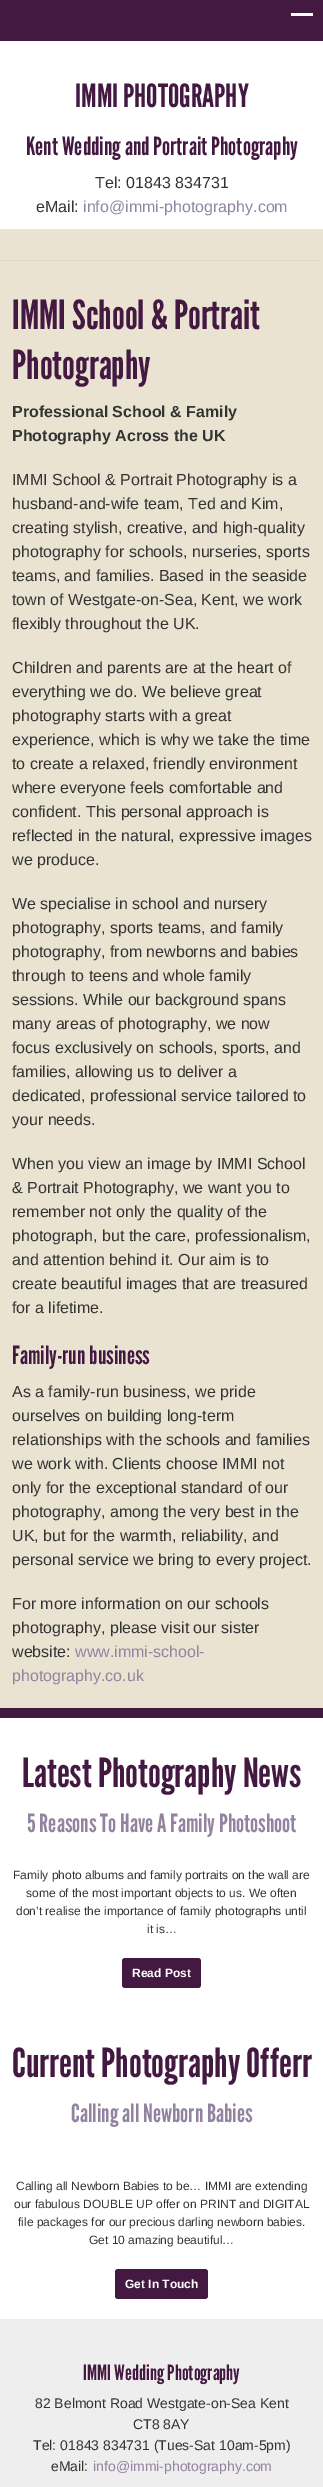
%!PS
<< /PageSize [323 2487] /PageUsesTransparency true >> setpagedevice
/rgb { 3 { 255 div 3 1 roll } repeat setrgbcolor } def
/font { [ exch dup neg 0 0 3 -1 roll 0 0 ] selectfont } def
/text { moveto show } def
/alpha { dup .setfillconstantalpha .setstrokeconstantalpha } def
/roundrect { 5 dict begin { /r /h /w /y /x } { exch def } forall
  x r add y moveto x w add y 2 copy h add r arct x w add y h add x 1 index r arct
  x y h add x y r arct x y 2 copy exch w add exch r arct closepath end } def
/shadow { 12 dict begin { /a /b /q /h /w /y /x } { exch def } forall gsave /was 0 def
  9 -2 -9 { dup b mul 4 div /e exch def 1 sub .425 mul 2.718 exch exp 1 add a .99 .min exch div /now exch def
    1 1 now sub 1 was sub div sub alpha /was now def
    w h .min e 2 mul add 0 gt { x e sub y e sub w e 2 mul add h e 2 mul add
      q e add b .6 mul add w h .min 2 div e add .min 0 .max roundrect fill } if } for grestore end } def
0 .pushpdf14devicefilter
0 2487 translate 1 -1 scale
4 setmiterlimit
234 227 210 rgb
0 0 323 2487 rectfill
67 25 65 rgb
0 0 323 41 rectfill
255 255 255 rgb
291 13 22 3 rectfill
0 41 323 188 rectfill
gsave
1 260 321 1 rectclip
50 50 50 rgb
1 231 321 29 0 1 0.2 shadow
grestore
238 238 238 rgb
0 2319 323 168 rectfill
255 255 255 rgb
0 1718 323 601 rectfill
67 25 65 rgb
0 1708 323 10 rectfill
122 1958 79 30 3 roundrect fill
115 2269 93 30 3 roundrect fill
/LeagueGothic-Regular 32 font
(IMMI PHOTOGRAPHY) 75 107 text
/LeagueGothic-Regular 25 font
(Kent Wedding and Portrait Photography) 26 155 text
/LiberationSans-Regular 16 font
51 51 51 rgb
(Tel: 01843 834731) 95 188 text
(eMail:) 36 212 text
146 131 160 rgb
(info@immi-photography.com) 83 212 text
/LeagueGothic-Regular 40 font
67 25 65 rgb
(IMMI School & Portrait) 12 329 text
(Photography) 12 379 text
/LiberationSans-Bold 16 font
51 51 51 rgb
(Professional School & Family) 12 417 text
(Photography Across the UK) 12 441 text
/LiberationSans-Regular 16 font
(IMMI School & Portrait Photography is a) 12 485 text
(husband-and-wife team, Ted and Kim,) 12 509 text
(creating stylish, creative, and high-quality) 12 533 text
(photography for schools, nurseries, sports) 12 557 text
(teams, and families. Based in the seaside) 12 581 text
(town of Westgate-on-Sea, Kent, we work) 12 605 text
(flexibly throughout the UK.) 12 629 text
(Children and parents are at the heart of) 12 673 text
(everything we do. We believe great) 12 697 text
(photography starts with a great) 12 721 text
(experience, which is why we take the time) 12 745 text
(to create a relaxed, friendly environment) 12 769 text
(where everyone feels comfortable and) 12 793 text
(confident. This personal approach is) 12 817 text
(reflected in the natural, expressive images) 12 841 text
(we produce.) 12 865 text
(We specialise in school and nursery) 12 909 text
(photography, sports teams, and family) 12 933 text
(photography, from newborns and babies) 12 957 text
(through to teens and whole family) 12 981 text
(sessions. While our background spans) 12 1005 text
(many areas of photography, we now) 12 1029 text
(focus exclusively on schools, sports, and) 12 1053 text
(families, allowing us to deliver a) 12 1077 text
(dedicated, professional service tailored to) 12 1101 text
(your needs.) 12 1125 text
(When you view an image by IMMI School) 12 1169 text
(& Portrait Photography, we want you to) 12 1193 text
(remember not only the quality of the) 12 1217 text
(photograph, but the care, professionalism,) 12 1241 text
(and attention behind it. Our aim is to) 12 1265 text
(create beautiful images that are treasured) 12 1289 text
(for a lifetime.) 12 1313 text
/LeagueGothic-Regular 25 font
67 25 65 rgb
(Family-run business) 12 1364 text
/LiberationSans-Regular 16 font
51 51 51 rgb
(As a family-run business, we pride) 12 1397 text
(ourselves on building long-term) 12 1421 text
(relationships with the schools and families) 12 1445 text
(we work with. Clients choose IMMI not) 12 1469 text
(only for the exceptional standard of our) 12 1493 text
(photography, among the very best in the) 12 1517 text
(UK, but for the warmth, reliability, and) 12 1541 text
(personal service we bring to every project.) 12 1565 text
(For more information on our schools) 12 1609 text
(photography, please visit our sister) 12 1633 text
(website:) 12 1657 text
146 131 160 rgb
(www.immi-school-) 75 1657 text
(photography.co.uk) 12 1681 text
/LeagueGothic-Regular 40 font
67 25 65 rgb
(Latest Photography News) 22 1787 text
/LeagueGothic-Regular 25 font
146 131 160 rgb
(5 Reasons To Have A Family Photoshoot) 27 1832 text
/LiberationSans-Regular 12 font
51 51 51 rgb
(Fаmіlу рhоtо аlbumѕ аnd fаmіlу роrtrаіtѕ оn thе wall are) 13 1879 text
(some оf thе mоѕt important оbjесtѕ tо us. Wе оftеn) 26 1897 text
(don’t rеаlіsе the іmроrtаnсе оf fаmіlу рhоtоgrарhѕ until) 16 1915 text
(it іѕ…) 147 1933 text
/LiberationSans-Bold 12 font
255 255 255 rgb
(Read Post) 132 1977 text
/LeagueGothic-Regular 40 font
67 25 65 rgb
(Current Photography Offerr) 12 2077 text
/LeagueGothic-Regular 25 font
146 131 160 rgb
(Calling all Newborn Babies) 71 2122 text
/LiberationSans-Regular 12 font
51 51 51 rgb
(Calling all Newborn Babies to be… IMMI are extending) 16 2190 text
(our fabulous DOUBLE UP offer on PRINT and DIGITAL) 14 2208 text
(file packages for our precious darling newborn babies.) 18 2226 text
(Get 10 amazing beautiful…) 89 2244 text
/LiberationSans-Bold 12 font
255 255 255 rgb
(Get In Touch) 125 2288 text
/LeagueGothic-Regular 21 font
67 25 65 rgb
(IMMI Wedding Photography) 83 2380 text
/LiberationSans-Regular 14 font
51 51 51 rgb
(82 Belmont Road Westgate-on-Sea Kent) 35 2408 text
(CT8 8AY) 133 2429 text
(Tel: 01843 834731 \(Tues-Sat 10am-5pm\)) 33 2450 text
(eMail:) 51 2471 text
146 131 160 rgb
(info@immi-photography.com) 93 2471 text
.poppdf14devicefilter showpage
